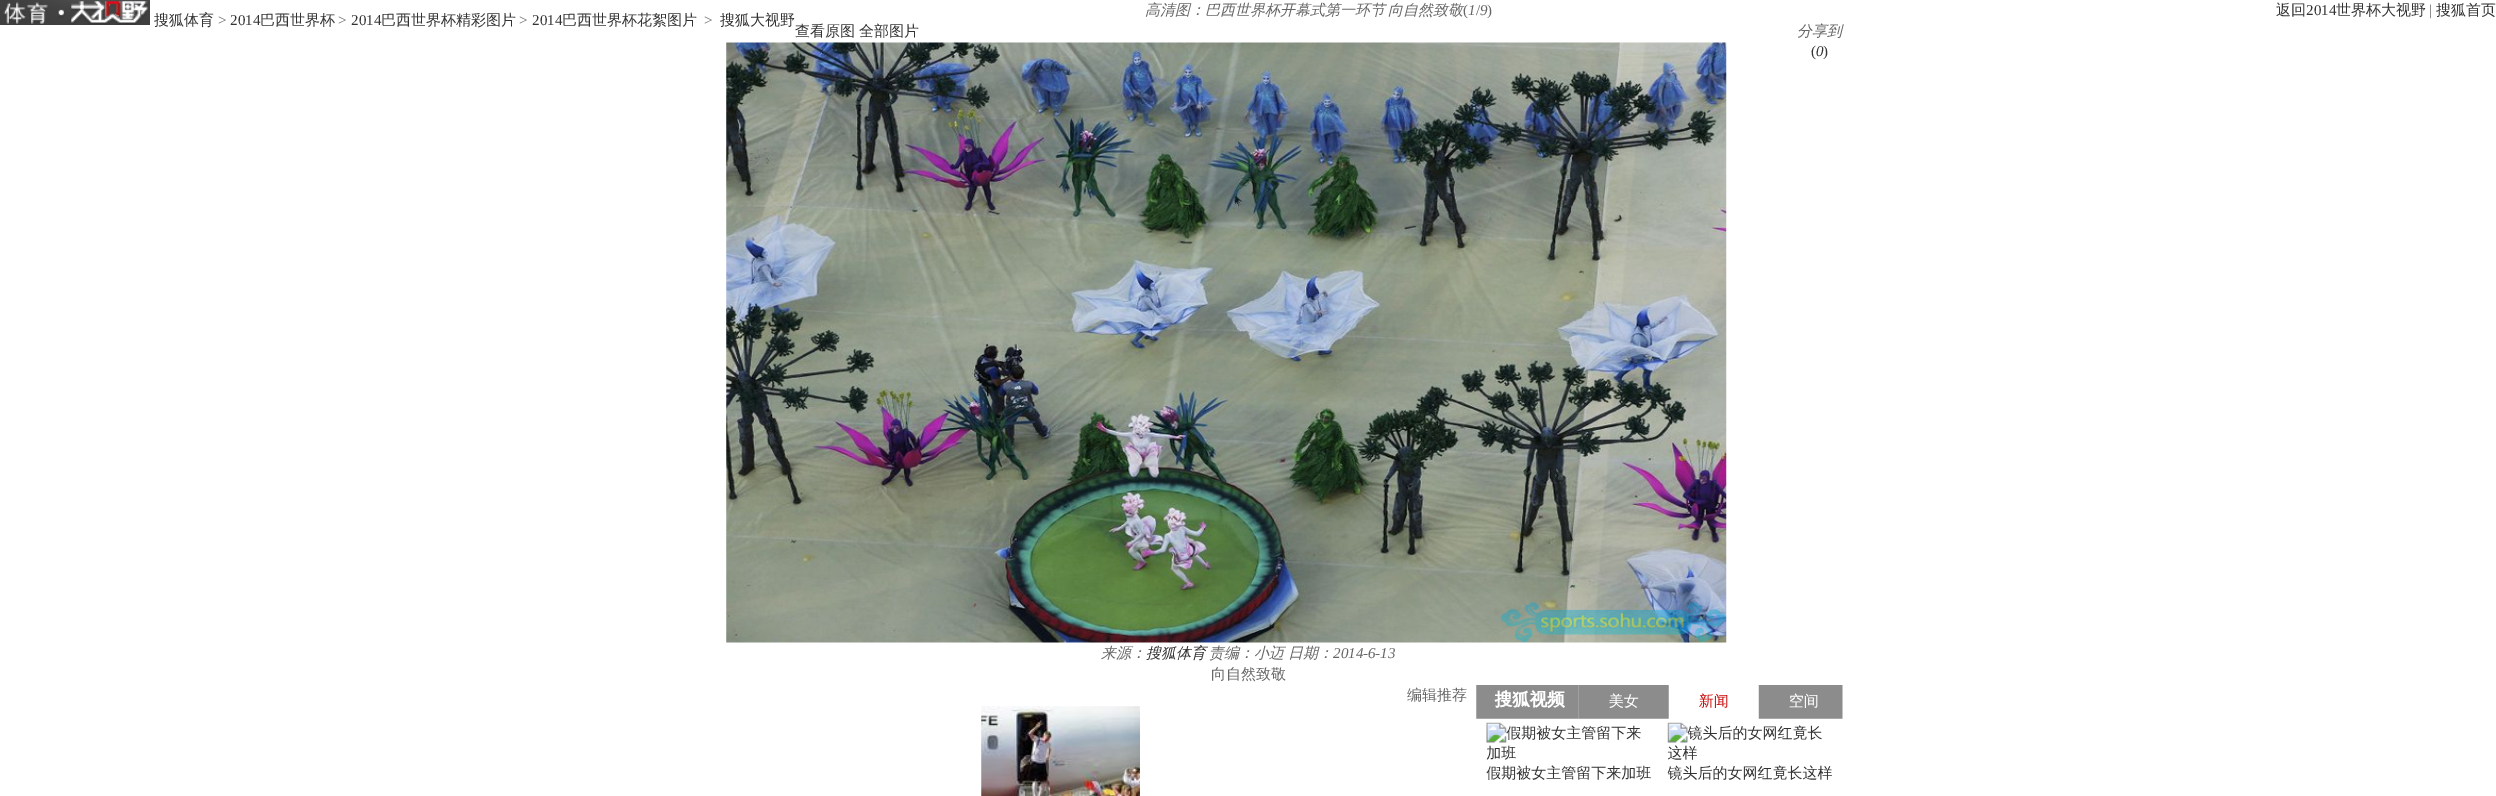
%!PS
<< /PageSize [2496 796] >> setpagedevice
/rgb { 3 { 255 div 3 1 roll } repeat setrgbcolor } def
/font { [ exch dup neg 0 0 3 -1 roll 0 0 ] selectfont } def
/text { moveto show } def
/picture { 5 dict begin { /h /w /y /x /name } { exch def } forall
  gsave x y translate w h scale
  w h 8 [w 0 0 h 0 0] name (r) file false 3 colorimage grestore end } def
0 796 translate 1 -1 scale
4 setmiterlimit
255 255 255 rgb
0 0 2496 796 rectfill
(img_01.rgb) 0 0 150 25 picture
(img_02.rgb) 726 42 1001 601 picture
(img_03.rgb) 981 706 159 90 picture
(img_04.rgb) 1476 685 367 95 picture
/WenQuanYiZenHei-Medium 15 font
51 51 51 rgb
(搜狐体育) 154 25 text
/LiberationSerif-Regular 15 font
102 102 102 rgb
(>) 218 25 text
51 51 51 rgb
(2014) 230 25 text
/WenQuanYiZenHei-Medium 15 font
(巴西世界杯) 260 25 text
/LiberationSerif-Regular 15 font
102 102 102 rgb
(>) 338 25 text
51 51 51 rgb
(2014) 351 25 text
/WenQuanYiZenHei-Medium 15 font
(巴西世界杯精彩图片) 381 25 text
/LiberationSerif-Regular 15 font
102 102 102 rgb
(>) 519 25 text
51 51 51 rgb
(2014) 532 25 text
/WenQuanYiZenHei-Medium 15 font
(巴西世界杯花絮图片) 562 25 text
/LiberationSerif-Regular 15 font
102 102 102 rgb
(>) 704 25 text
/WenQuanYiZenHei-Medium 15 font
51 51 51 rgb
(搜狐大视野) 720 25 text
(返回) 2276 15 text
/LiberationSerif-Regular 15 font
(2014) 2306 15 text
/WenQuanYiZenHei-Medium 15 font
(世界杯大视野) 2336 15 text
/LiberationSerif-Regular 15 font
102 102 102 rgb
(|) 2429 15 text
/WenQuanYiZenHei-Medium 15 font
51 51 51 rgb
(搜狐首页) 2436 15 text
/WenQuanYiZenHei-MediumItalic 15 font
102 102 102 rgb
1145 15 moveto -1 0 32 (高清图：巴西世界杯开幕式第一环节 向自然致敬) widthshow
/LiberationSerif-Regular 15 font
(\() 1463 15 text
/LiberationSerif-Italic 15 font
(1) 1468 15 text
/LiberationSerif-Regular 15 font
(/) 1476 15 text
/LiberationSerif-Italic 15 font
(9) 1480 15 text
/LiberationSerif-Regular 15 font
(\)) 1487 15 text
/WenQuanYiZenHei-Medium 15 font
51 51 51 rgb
(查看原图) 795 36 text
(全部图片) 859 36 text
/WenQuanYiZenHei-MediumItalic 15 font
102 102 102 rgb
(分享到) 1797 36 text
/LiberationSerif-Regular 15 font
51 51 51 rgb
(\() 1811 56 text
/LiberationSerif-Italic 15 font
(0) 1816 56 text
/LiberationSerif-Regular 15 font
(\)) 1823 56 text
/WenQuanYiZenHei-MediumItalic 15 font
102 102 102 rgb
(来源：) 1101 658 text
51 51 51 rgb
(搜狐体育) 1146 658 text
102 102 102 rgb
(责编：小迈) 1209 658 text
(日期：) 1288 658 text
/LiberationSerif-Italic 15 font
(2014-6-13) 1333 658 text
/WenQuanYiZenHei-Medium 15 font
(向自然致敬) 1211 679 text
(编辑推荐) 1407 700 text
showpage
